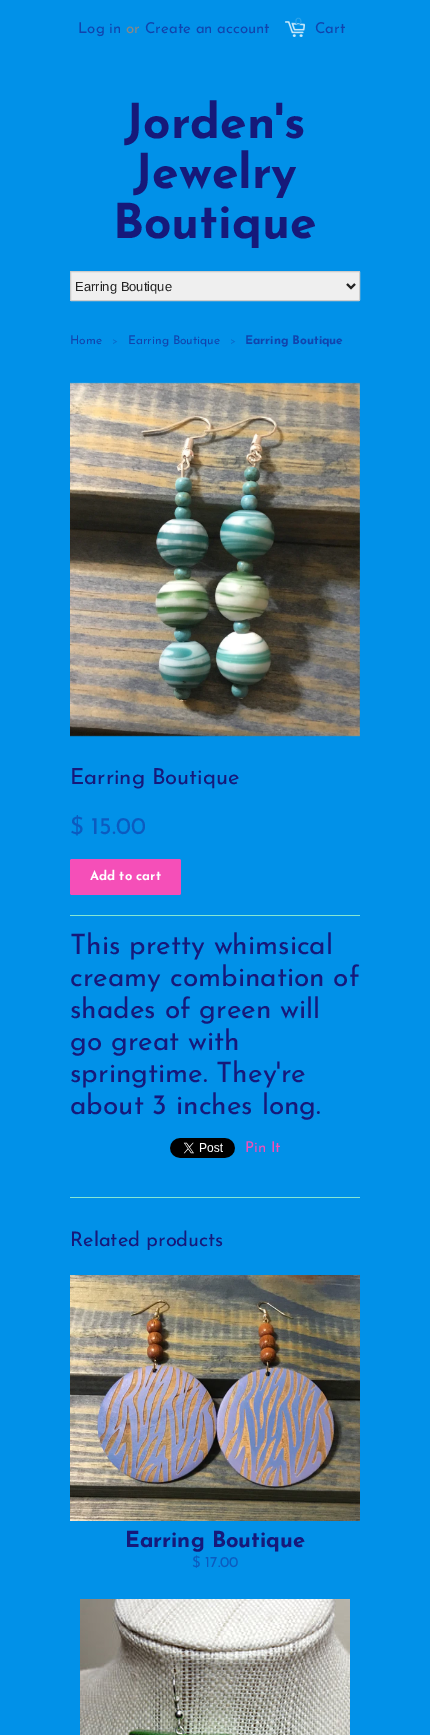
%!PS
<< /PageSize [430 1735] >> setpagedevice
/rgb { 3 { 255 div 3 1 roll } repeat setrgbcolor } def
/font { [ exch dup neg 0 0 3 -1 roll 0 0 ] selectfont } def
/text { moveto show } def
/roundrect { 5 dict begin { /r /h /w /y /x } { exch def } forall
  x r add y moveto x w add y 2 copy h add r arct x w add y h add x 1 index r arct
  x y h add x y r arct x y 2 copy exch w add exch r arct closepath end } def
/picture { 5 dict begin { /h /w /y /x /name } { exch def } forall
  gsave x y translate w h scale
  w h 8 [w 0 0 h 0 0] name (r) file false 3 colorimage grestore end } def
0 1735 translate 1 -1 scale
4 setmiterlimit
1 145 232 rgb
0 0 430 1735 rectfill
(img_01.rgb) 285 21 20 16 picture
239 239 239 rgb
70.5 271.5 289 29 0.5 roundrect gsave fill grestore
204 204 204 rgb
stroke
34 34 34 rgb
2 setlinewidth
347 284 moveto 4 4 rlineto 4 -4 rlineto stroke
(img_02.rgb) 70 382 290 355 picture
133 230 211 rgb
70 915 290 1 rectfill
245 79 184 rgb
70 859 111 36 2 roundrect fill
(img_03.rgb) 170 1138 65 20 picture
133 230 211 rgb
70 1197 290 1 rectfill
(img_04.rgb) 70 1275 290 246 picture
(img_05.rgb) 80 1599 270 136 picture
/JosefinSans-Regular 15 font
17 68 173 rgb
(Log in) 78 33 text
136 136 136 rgb
(or) 126 33 text
17 68 173 rgb
(Create an account) 145 33 text
/JosefinSans-Regular 11 font
44 163 236 rgb
(0) 295 25 text
/JosefinSans-Regular 15 font
17 68 173 rgb
(Cart) 315 33 text
/JosefinSans-Bold 48 font
22 25 122 rgb
(Jorden's) 124 138 text
(Jewelry) 133 188 text
(Boutique) 113 238 text
/LiberationSans-Regular 13 font
34 34 34 rgb
(Earring Boutique) 75 291 text
/JosefinSans-Regular 12 font
17 68 173 rgb
(Home) 70 344 text
/JosefinSans-Regular 10 font
9 107 203 rgb
(>) 112 344 text
/JosefinSans-Regular 12 font
17 68 173 rgb
(Earring Boutique) 128 344 text
/JosefinSans-Regular 10 font
9 107 203 rgb
(>) 230 344 text
/JosefinSans-Bold 12 font
17 68 173 rgb
(Earring Boutique) 245 344 text
/JosefinSans-Regular 22 font
22 25 122 rgb
(Earring Boutique) 70 784 text
/JosefinSans-Regular 24 font
12 91 191 rgb
($ 15.00) 70 834 text
/JosefinSans-Bold 13 font
255 255 255 rgb
(Add to cart) 90 880 text
/JosefinSans-Regular 28 font
22 25 122 rgb
(This pretty whimsical) 70 954 text
(creamy combination of) 70 986 text
(shades of green will) 70 1018 text
(go great with) 70 1050 text
(springtime. They're) 70 1082 text
(about 3 inches long.) 70 1114 text
/JosefinSans-Regular 15 font
245 79 184 rgb
(Pin It) 245 1152 text
/JosefinSans-Regular 20 font
22 25 122 rgb
(Related products) 70 1246 text
/JosefinSans-Bold 22 font
(Earring Boutique) 125 1547 text
/JosefinSans-Regular 15 font
12 91 191 rgb
($ 17.00) 192 1567 text
showpage
